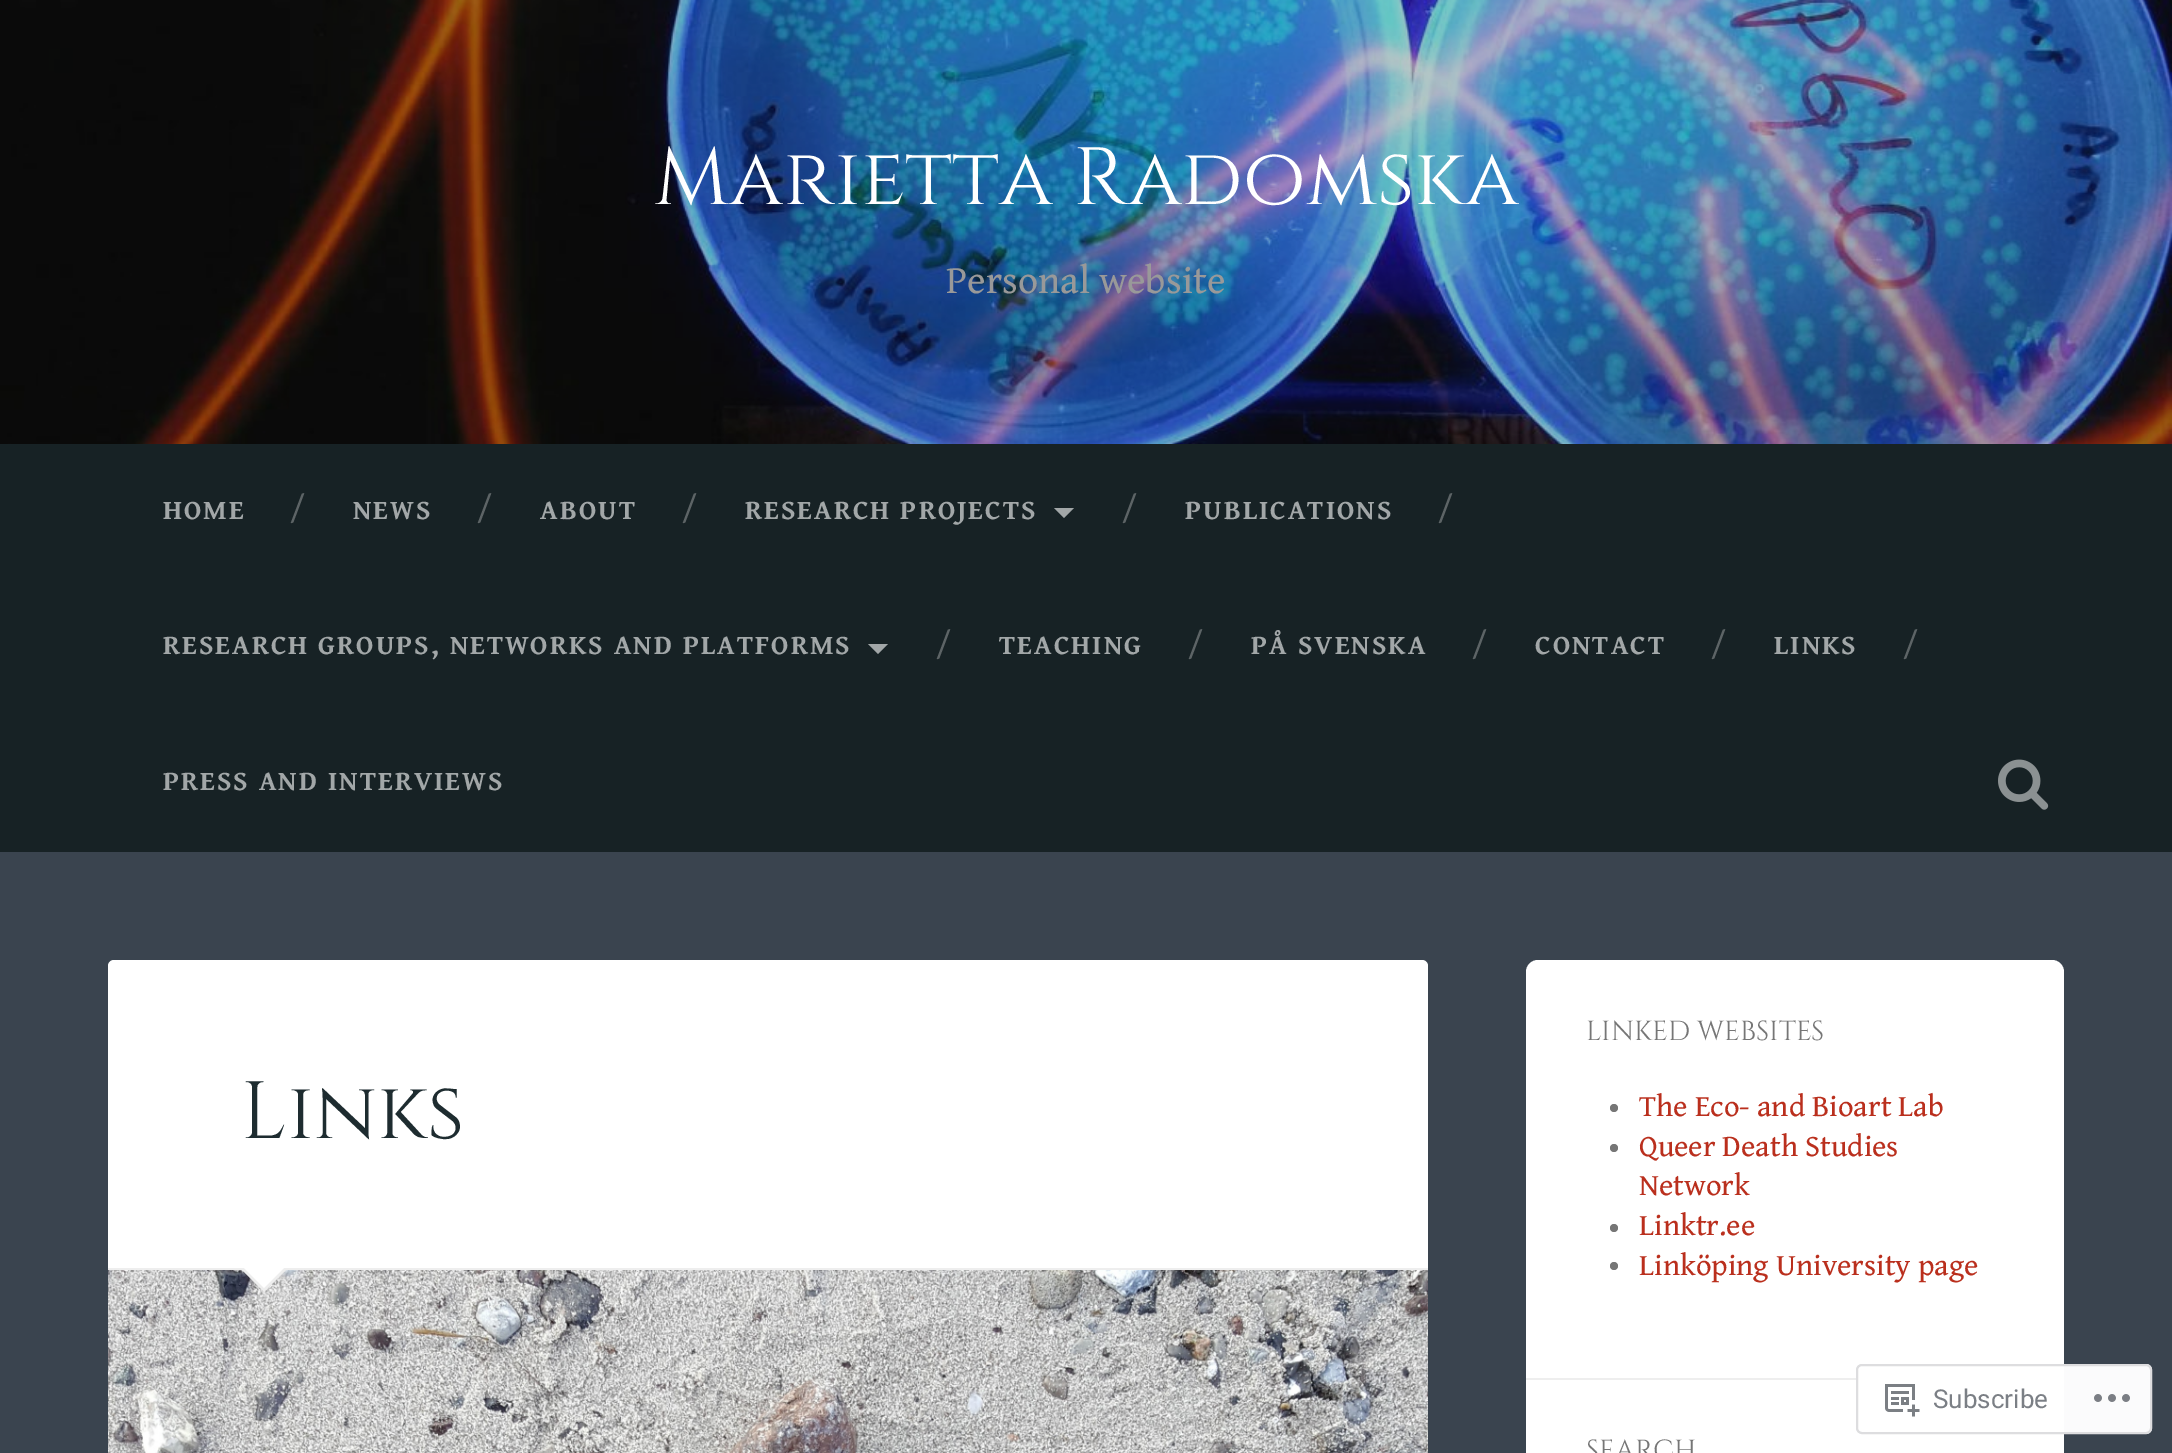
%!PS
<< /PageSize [2172 1453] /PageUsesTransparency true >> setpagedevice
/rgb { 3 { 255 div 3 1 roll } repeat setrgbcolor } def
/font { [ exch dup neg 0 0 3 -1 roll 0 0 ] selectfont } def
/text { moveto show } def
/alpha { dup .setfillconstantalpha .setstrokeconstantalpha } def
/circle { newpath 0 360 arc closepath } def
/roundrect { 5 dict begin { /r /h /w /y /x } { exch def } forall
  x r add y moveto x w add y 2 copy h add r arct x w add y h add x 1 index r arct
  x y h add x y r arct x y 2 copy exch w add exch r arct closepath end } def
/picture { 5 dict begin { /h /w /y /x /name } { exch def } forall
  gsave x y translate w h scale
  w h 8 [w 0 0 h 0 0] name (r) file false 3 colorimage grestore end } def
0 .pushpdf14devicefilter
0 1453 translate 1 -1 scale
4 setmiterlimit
58 68 79 rgb
0 0 2172 1453 rectfill
(img_01.rgb) 0 0 2172 444 picture
23 34 37 rgb
0 444 2172 408 rectfill
162 167 168 rgb
1054 508 moveto 20 0 rlineto -10 10 rlineto closepath fill
868 644 moveto 20 0 rlineto -10 10 rlineto closepath fill
(img_02.rgb) 1998 759 51 51 picture
255 255 255 rgb
108 960 1320 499 6 roundrect fill
238 238 238 rgb
108 1268 1320 2 rectfill
(img_03.rgb) 108 1270 1320 183 picture
240 1268 moveto 48 0 rlineto -24 24 rlineto closepath fill
255 255 255 rgb
242 1266 moveto 44 0 rlineto -22 22 rlineto closepath fill
1526 960 538 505 12 roundrect fill
118 118 118 rgb
1614 1108 4 circle fill
1614 1148 4 circle fill
1614 1228 4 circle fill
1614 1266 4 circle fill
238 238 238 rgb
1526 1378 538 2 rectfill
0.98 alpha
255 255 255 rgb
1856 1364 296 70 6 roundrect fill
220 220 222 rgb
2 setlinewidth
1857 1365 294 68 5 roundrect stroke
1 alpha
(img_04.rgb) 1885 1384 35 33 picture
(img_05.rgb) 2094 1394 36 8 picture
/Cinzel-Regular 81 font
255 255 255 rgb
(Marietta Radomska) 654 204 text
/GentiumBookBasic-Regular 39.5 font
153 153 153 rgb
(Personal website) 946 293 text
/GentiumBookBasic-Bold 27.55 font
162 167 168 rgb
163 519 moveto 2 0 (HOME) ashow
/GentiumBookBasic-Regular 32 font
93 100 102 rgb
(/) 290 518 text
/GentiumBookBasic-Bold 27.55 font
162 167 168 rgb
353 519 moveto 2 0 (NEWS) ashow
/GentiumBookBasic-Regular 32 font
93 100 102 rgb
(/) 477 518 text
/GentiumBookBasic-Bold 27.55 font
162 167 168 rgb
540 519 moveto 2 0 (ABOUT) ashow
/GentiumBookBasic-Regular 32 font
93 100 102 rgb
(/) 682 518 text
/GentiumBookBasic-Bold 27.55 font
162 167 168 rgb
745 519 moveto 2 0 (RESEARCH PROJECTS) ashow
/GentiumBookBasic-Regular 32 font
93 100 102 rgb
(/) 1122 518 text
/GentiumBookBasic-Bold 27.55 font
162 167 168 rgb
1185 519 moveto 2 0 (PUBLICATIONS) ashow
/GentiumBookBasic-Regular 32 font
93 100 102 rgb
(/) 1438 518 text
/GentiumBookBasic-Bold 27.55 font
162 167 168 rgb
163 654 moveto 2 0 (RESEARCH GROUPS, NETWORKS AND PLATFORMS) ashow
/GentiumBookBasic-Regular 32 font
93 100 102 rgb
(/) 936 654 text
/GentiumBookBasic-Bold 27.55 font
162 167 168 rgb
999 654 moveto 2 0 (TEACHING) ashow
/GentiumBookBasic-Regular 32 font
93 100 102 rgb
(/) 1188 654 text
/GentiumBookBasic-Bold 27.55 font
162 167 168 rgb
1251 654 moveto 2 0 (PÅ SVENSKA) ashow
/GentiumBookBasic-Regular 32 font
93 100 102 rgb
(/) 1472 654 text
/GentiumBookBasic-Bold 27.55 font
162 167 168 rgb
1535 654 moveto 2 0 (CONTACT) ashow
/GentiumBookBasic-Regular 32 font
93 100 102 rgb
(/) 1711 654 text
/GentiumBookBasic-Bold 27.55 font
162 167 168 rgb
1774 654 moveto 2 0 (LINKS) ashow
/GentiumBookBasic-Regular 32 font
93 100 102 rgb
(/) 1903 654 text
/GentiumBookBasic-Bold 27.55 font
162 167 168 rgb
163 790 moveto 2 0 (PRESS AND INTERVIEWS) ashow
/Cinzel-Regular 81 font
30 44 48 rgb
(Links) 241 1138 text
/Cinzel-Regular 27.55 font
118 118 118 rgb
(LINKED WEBSITES) 1586 1040 text
/GentiumBookBasic-Regular 30.6 font
186 47 29 rgb
(The Eco- and Bioart Lab) 1639 1116 text
(Queer Death Studies) 1639 1156 text
(Network) 1639 1195 text
(Linktr.ee) 1639 1235 text
(Linköping University page) 1639 1275 text
/Cinzel-Regular 27.55 font
118 118 118 rgb
(SEARCH) 1586 1459 text
/Roboto-Regular 26 font
123 127 133 rgb
(Subscribe) 1933 1408 text
.poppdf14devicefilter showpage
